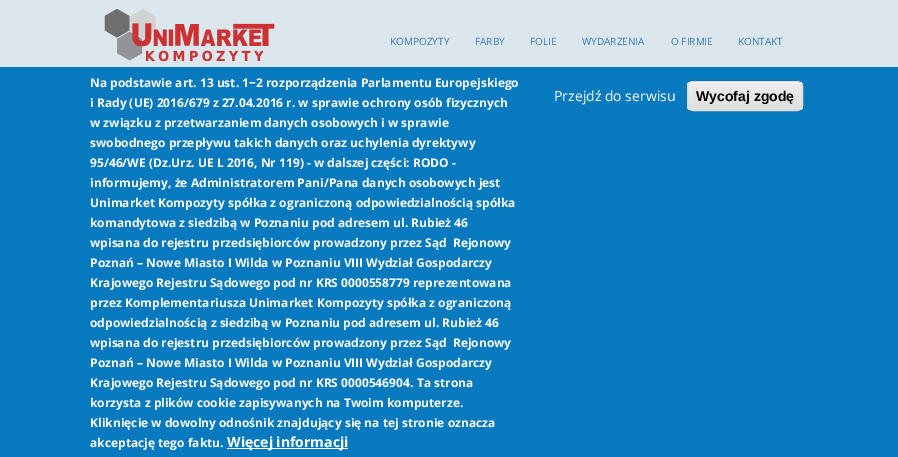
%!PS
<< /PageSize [898 457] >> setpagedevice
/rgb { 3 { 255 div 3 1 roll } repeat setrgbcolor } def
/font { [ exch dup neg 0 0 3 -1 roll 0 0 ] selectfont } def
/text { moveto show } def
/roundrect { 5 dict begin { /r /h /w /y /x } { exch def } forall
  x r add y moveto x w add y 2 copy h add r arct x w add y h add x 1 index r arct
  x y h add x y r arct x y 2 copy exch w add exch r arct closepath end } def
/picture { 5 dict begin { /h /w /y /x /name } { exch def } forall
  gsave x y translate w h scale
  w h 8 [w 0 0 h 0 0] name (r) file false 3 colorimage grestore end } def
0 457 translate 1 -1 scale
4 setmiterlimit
220 231 237 rgb
0 0 898 457 rectfill
(img_01.rgb) 104 9 171 53 picture
7 121 191 rgb
0 67 898 390 rectfill
255 255 255 rgb
227 448 121 1 rectfill
gsave
687 81 116 30 6 roundrect clip newpath
gsave 687 82 moveto 116 0 rlineto 0 28 rlineto -116 0 rlineto closepath clip newpath
<< /ShadingType 2 /ColorSpace /DeviceRGB /Coords [745 82 745 110] /Extend [true true] /Function << /FunctionType 3 /Domain [0 1] /Functions [<< /FunctionType 2 /Domain [0 1] /C0 [0.929 0.929 0.929] /C1 [0.929 0.929 0.929] /N 1 >> << /FunctionType 2 /Domain [0 1] /C0 [0.929 0.929 0.929] /C1 [0.875 0.875 0.875] /N 1 >>] /Bounds [0.05] /Encode [0 1 0 1] >> >> shfill grestore
grestore
693 83 moveto 104 0 rlineto 3 0 5 2 5 5 rcurveto 0 -10 -18 -6 -22 -6 rcurveto -70 0 rlineto -4 0 -22 -4 -22 6 rcurveto 0 -3 2 -5 5 -5 rcurveto closepath fill
220 220 220 rgb
687.5 81.5 115 29 5.5 roundrect stroke
/OpenSans-Regular 10 font
51 122 183 rgb
(KOMPOZYTY) 390 45 text
(FARBY) 475 45 text
(FOLIE) 530 45 text
(WYDARZENIA) 582 45 text
(O FIRMIE) 671 45 text
(KONTAKT) 738 45 text
/OpenSans-Bold 12 font
255 255 255 rgb
(Na podstawie art. 13 ust. 1−2 rozporządzenia Parlamentu Europejskiego) 90 87 text
(i Rady \(UE\) 2016/679 z 27.04.2016 r. w sprawie ochrony osób fizycznych) 90 107 text
(w związku z przetwarzaniem danych osobowych i w sprawie) 90 127 text
(swobodnego przepływu takich danych oraz uchylenia dyrektywy) 90 147 text
(95/46/WE \(Dz.Urz. UE L 2016, Nr 119\) - w dalszej części: RODO -) 90 167 text
(informujemy, że Administratorem Pani/Pana danych osobowych jest) 90 187 text
(Unimarket Kompozyty spółka z ograniczoną odpowiedzialnością spółka) 90 207 text
(komandytowa z siedzibą w Poznaniu pod adresem ul. Rubież 46) 90 227 text
(wpisana do rejestru przedsiębiorców prowadzony przez Sąd  Rejonowy) 90 247 text
(Poznań – Nowe Miasto I Wilda w Poznaniu VIII Wydział Gospodarczy) 90 267 text
(Krajowego Rejestru Sądowego pod nr KRS 0000558779 reprezentowana) 90 287 text
(przez Komplementariusza Unimarket Kompozyty spółka z ograniczoną) 90 307 text
(odpowiedzialnością z siedzibą w Poznaniu pod adresem ul. Rubież 46) 90 327 text
(wpisana do rejestru przedsiębiorców prowadzony przez Sąd  Rejonowy) 90 347 text
(Poznań – Nowe Miasto I Wilda w Poznaniu VIII Wydział Gospodarczy) 90 367 text
(Krajowego Rejestru Sądowego pod nr KRS 0000546904.) 90 387 text
(Ta strona) 417 387 text
(korzysta z plików cookie zapisywanych na Twoim komputerze.) 90 407 text
(Kliknięcie w dowolny odnośnik znajdujący się na tej stronie oznacza) 90 427 text
(akceptację tego faktu.) 90 447 text
/OpenSans-Bold 14 font
(Więcej informacji) 227 447 text
/OpenSans-Regular 14 font
(Przejdź do serwisu) 554 101 text
/LiberationSans-Bold 14 font
0 0 0 rgb
(Wycofaj zgodę) 696 101 text
showpage
